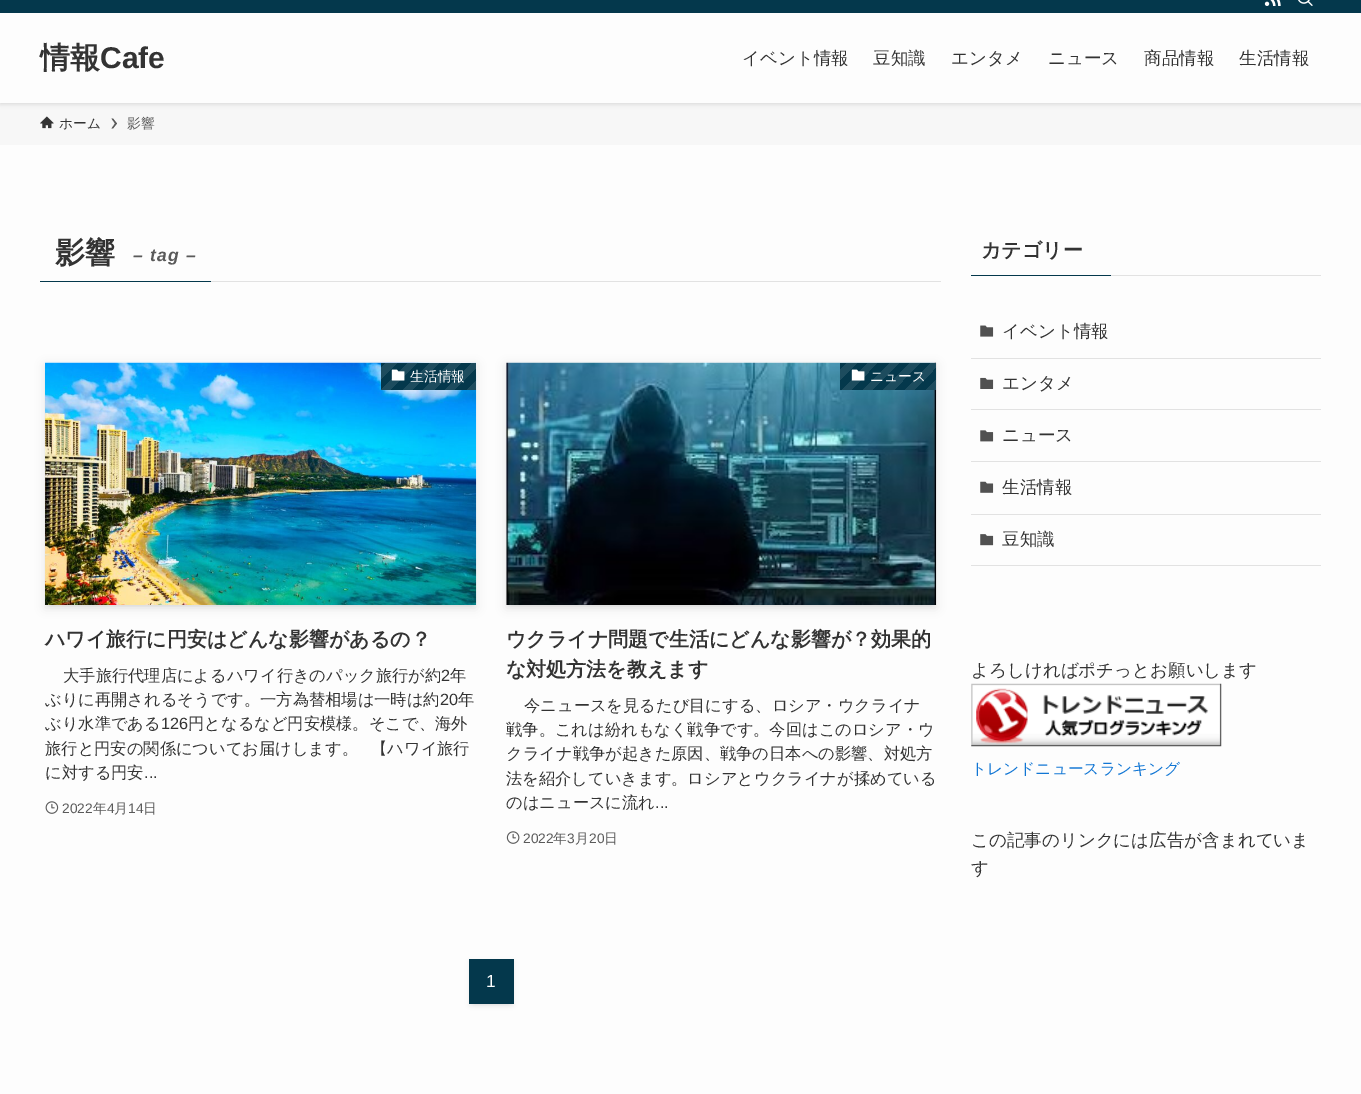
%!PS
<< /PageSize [1361 1094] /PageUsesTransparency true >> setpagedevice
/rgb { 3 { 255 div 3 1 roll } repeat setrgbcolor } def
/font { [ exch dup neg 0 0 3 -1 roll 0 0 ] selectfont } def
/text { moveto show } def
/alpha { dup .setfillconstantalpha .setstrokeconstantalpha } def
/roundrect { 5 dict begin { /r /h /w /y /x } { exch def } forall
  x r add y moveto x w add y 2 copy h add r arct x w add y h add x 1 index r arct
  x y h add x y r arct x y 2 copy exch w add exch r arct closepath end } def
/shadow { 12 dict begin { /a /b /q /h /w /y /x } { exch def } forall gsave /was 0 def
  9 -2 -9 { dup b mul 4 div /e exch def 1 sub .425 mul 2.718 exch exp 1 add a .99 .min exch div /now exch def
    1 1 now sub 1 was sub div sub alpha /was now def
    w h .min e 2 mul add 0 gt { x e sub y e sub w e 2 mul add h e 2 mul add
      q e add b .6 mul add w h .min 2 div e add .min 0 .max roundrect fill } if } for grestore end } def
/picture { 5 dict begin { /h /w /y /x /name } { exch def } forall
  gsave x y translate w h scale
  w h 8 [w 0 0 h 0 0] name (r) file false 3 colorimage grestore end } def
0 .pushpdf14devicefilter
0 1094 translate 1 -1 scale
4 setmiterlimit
253 253 253 rgb
0 0 1361 1094 rectfill
247 247 247 rgb
0 103 1361 42 rectfill
0 0 0 rgb
0 -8 1361 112 0 2.5 0.12 shadow
253 253 253 rgb
0 13 1361 90 rectfill
4 56 76 rgb
0 0 1361 13 rectfill
(img_01.rgb) 1264 0 17 6 picture
(img_02.rgb) 1298 0 15 6 picture
(img_03.rgb) 40 116 14 13 picture
90 90 90 rgb
113 118.5 moveto -1.5 0 rlineto 3.5 5 rlineto -3.5 5 rlineto 1.5 0 rlineto 4 -5 rlineto closepath fill
226 226 226 rgb
211 281 730 1 rectfill
4 56 76 rgb
40 281 171 1 rectfill
0 0 0 rgb
50 373 421 232 0 2.5 0.1 shadow
45 365 431 243 0 5 0.1 shadow
(img_04.rgb) 45 362 432 243 picture
gsave 381 363 moveto 95 0 rlineto 0 27 rlineto -95 0 rlineto closepath clip newpath
<< /ShadingType 2 /ColorSpace /DeviceRGB /Coords [459 407 396 343] /Extend [true true] /Function << /FunctionType 3 /Domain [0 1] /Functions [<< /FunctionType 2 /Domain [0 1] /C0 [0.114 0.298 0.369] /C1 [0.114 0.298 0.369] /N 1 >> << /FunctionType 2 /Domain [0 1] /C0 [0.016 0.22 0.298] /C1 [0.016 0.22 0.298] /N 1 >> << /FunctionType 2 /Domain [0 1] /C0 [0.114 0.298 0.369] /C1 [0.114 0.298 0.369] /N 1 >> << /FunctionType 2 /Domain [0 1] /C0 [0.016 0.22 0.298] /C1 [0.016 0.22 0.298] /N 1 >> << /FunctionType 2 /Domain [0 1] /C0 [0.114 0.298 0.369] /C1 [0.114 0.298 0.369] /N 1 >> << /FunctionType 2 /Domain [0 1] /C0 [0.016 0.22 0.298] /C1 [0.016 0.22 0.298] /N 1 >> << /FunctionType 2 /Domain [0 1] /C0 [0.114 0.298 0.369] /C1 [0.114 0.298 0.369] /N 1 >> << /FunctionType 2 /Domain [0 1] /C0 [0.016 0.22 0.298] /C1 [0.016 0.22 0.298] /N 1 >> << /FunctionType 2 /Domain [0 1] /C0 [0.114 0.298 0.369] /C1 [0.114 0.298 0.369] /N 1 >> << /FunctionType 2 /Domain [0 1] /C0 [0.016 0.22 0.298] /C1 [0.016 0.22 0.298] /N 1 >> << /FunctionType 2 /Domain [0 1] /C0 [0.114 0.298 0.369] /C1 [0.114 0.298 0.369] /N 1 >> << /FunctionType 2 /Domain [0 1] /C0 [0.016 0.22 0.298] /C1 [0.016 0.22 0.298] /N 1 >>] /Bounds [0.08 0.17 0.25 0.33 0.42 0.5 0.58 0.67 0.75 0.83 0.92] /Encode [0 1 0 1 0 1 0 1 0 1 0 1 0 1 0 1 0 1 0 1 0 1 0 1] >> >> shfill grestore
(img_05.rgb) 391 369 14 12 picture
(img_06.rgb) 45 801 14 13 picture
511 373 420 232 0 2.5 0.1 shadow
506 365 430 243 0 5 0.1 shadow
(img_07.rgb) 506 362 431 243 picture
gsave 840 363 moveto 96 0 rlineto 0 27 rlineto -96 0 rlineto closepath clip newpath
<< /ShadingType 2 /ColorSpace /DeviceRGB /Coords [919 407 855 344] /Extend [true true] /Function << /FunctionType 3 /Domain [0 1] /Functions [<< /FunctionType 2 /Domain [0 1] /C0 [0.114 0.298 0.369] /C1 [0.114 0.298 0.369] /N 1 >> << /FunctionType 2 /Domain [0 1] /C0 [0.016 0.22 0.298] /C1 [0.016 0.22 0.298] /N 1 >> << /FunctionType 2 /Domain [0 1] /C0 [0.114 0.298 0.369] /C1 [0.114 0.298 0.369] /N 1 >> << /FunctionType 2 /Domain [0 1] /C0 [0.016 0.22 0.298] /C1 [0.016 0.22 0.298] /N 1 >> << /FunctionType 2 /Domain [0 1] /C0 [0.114 0.298 0.369] /C1 [0.114 0.298 0.369] /N 1 >> << /FunctionType 2 /Domain [0 1] /C0 [0.016 0.22 0.298] /C1 [0.016 0.22 0.298] /N 1 >> << /FunctionType 2 /Domain [0 1] /C0 [0.114 0.298 0.369] /C1 [0.114 0.298 0.369] /N 1 >> << /FunctionType 2 /Domain [0 1] /C0 [0.016 0.22 0.298] /C1 [0.016 0.22 0.298] /N 1 >> << /FunctionType 2 /Domain [0 1] /C0 [0.114 0.298 0.369] /C1 [0.114 0.298 0.369] /N 1 >> << /FunctionType 2 /Domain [0 1] /C0 [0.016 0.22 0.298] /C1 [0.016 0.22 0.298] /N 1 >> << /FunctionType 2 /Domain [0 1] /C0 [0.114 0.298 0.369] /C1 [0.114 0.298 0.369] /N 1 >> << /FunctionType 2 /Domain [0 1] /C0 [0.016 0.22 0.298] /C1 [0.016 0.22 0.298] /N 1 >>] /Bounds [0.08 0.17 0.25 0.33 0.42 0.5 0.58 0.67 0.75 0.83 0.92] /Encode [0 1 0 1 0 1 0 1 0 1 0 1 0 1 0 1 0 1 0 1 0 1 0 1] >> >> shfill grestore
(img_08.rgb) 851 369 14 12 picture
(img_09.rgb) 506 831 14 13 picture
474 969 35 35 0 2.5 0.1 shadow
469 961 45 45 0 2.5 0.05 shadow
4 56 76 rgb
469 959 45 45 rectfill
971 275 140 1 rectfill
226 226 226 rgb
1111 275 210 1 rectfill
971 358 350 1 rectfill
(img_10.rgb) 980 325 14 12 picture
971 409 350 1 rectfill
(img_11.rgb) 980 377 14 12 picture
971 461 350 1 rectfill
(img_12.rgb) 980 430 14 12 picture
971 514 350 1 rectfill
(img_13.rgb) 980 481 14 12 picture
971 565 350 1 rectfill
(img_14.rgb) 980 534 14 12 picture
(img_15.rgb) 971 683 251 64 picture
/WenQuanYiZenHei-Bold 30 font
51 51 51 rgb
(情報) 40 68 text
/LiberationSans-Bold 30 font
(Cafe) 100 68 text
/WenQuanYiZenHei-Medium 17.5 font
(イベント情報) 742 64 text
(豆知識) 873 64 text
(エンタメ) 951 64 text
(ニュース) 1048 64 text
(商品情報) 1144 64 text
(生活情報) 1239 64 text
/WenQuanYiZenHei-Medium 13.75 font
(ホーム) 59 128 text
90 90 90 rgb
(影響) 127 128 text
/WenQuanYiZenHei-Bold 30 font
51 51 51 rgb
(影響) 55 263 text
/LiberationSans-BoldItalic 17.5 font
90 90 90 rgb
133 261 moveto 1.25 0 (– tag –) ashow
/WenQuanYiZenHei-Medium 13.75 font
255 255 255 rgb
(生活情報) 410 381 text
/WenQuanYiZenHei-Bold 20 font
51 51 51 rgb
(ハワイ旅行に円安はどんな影響があるの？) 45 646 text
/WenQuanYiZenHei-Medium 16.25 font
(大手旅行代理店によるハワイ行きのパック旅行が約) 63 681 text
/LiberationSans-Regular 16.25 font
(2) 441 681 text
/WenQuanYiZenHei-Medium 16.25 font
(年) 450 681 text
(ぶりに再開されるそうです。一方為替相場は一時は約) 45 705 text
/LiberationSans-Regular 16.25 font
(20) 440 705 text
/WenQuanYiZenHei-Medium 16.25 font
(年) 458 705 text
(ぶり水準である) 45 729 text
/LiberationSans-Regular 16.25 font
(126) 161 729 text
/WenQuanYiZenHei-Medium 16.25 font
(円となるなど円安模様。そこで、海外) 188 729 text
(旅行と円安の関係についてお届けします。) 45 754 text
(【ハワイ旅行) 371 754 text
(に対する円安) 45 778 text
/LiberationSans-Regular 16.25 font
(...) 144 778 text
/LiberationSans-Regular 13.75 font
90 90 90 rgb
(2022) 62 813 text
/WenQuanYiZenHei-Medium 13.75 font
(年) 93 813 text
/LiberationSans-Regular 13.75 font
(4) 107 813 text
/WenQuanYiZenHei-Medium 13.75 font
(月) 114 813 text
/LiberationSans-Regular 13.75 font
(14) 128 813 text
/WenQuanYiZenHei-Medium 13.75 font
(日) 143 813 text
255 255 255 rgb
(ニュース) 870 381 text
/WenQuanYiZenHei-Bold 20 font
51 51 51 rgb
(ウクライナ問題で生活にどんな影響が？効果的) 506 646 text
(な対処方法を教えます) 506 676 text
/WenQuanYiZenHei-Medium 16.25 font
(今ニュースを見るたび目にする、ロシア・ウクライナ) 524 711 text
(戦争。これは紛れもなく戦争です。今回はこのロシア・ウ) 506 735 text
(クライナ戦争が起きた原因、戦争の日本への影響、対処方) 506 759 text
(法を紹介していきます。ロシアとウクライナが揉めている) 506 784 text
(のはニュースに流れ) 506 808 text
/LiberationSans-Regular 16.25 font
(...) 655 808 text
/LiberationSans-Regular 13.75 font
90 90 90 rgb
(2022) 523 843 text
/WenQuanYiZenHei-Medium 13.75 font
(年) 553 843 text
/LiberationSans-Regular 13.75 font
(3) 567 843 text
/WenQuanYiZenHei-Medium 13.75 font
(月) 575 843 text
/LiberationSans-Regular 13.75 font
(20) 589 843 text
/WenQuanYiZenHei-Medium 13.75 font
(日) 604 843 text
/LiberationSans-Regular 17.5 font
255 255 255 rgb
(1) 486 987 text
/WenQuanYiZenHei-Bold 20 font
51 51 51 rgb
(カテゴリー) 981 257 text
/WenQuanYiZenHei-Medium 17.5 font
(イベント情報) 1002 337 text
(エンタメ) 1002 389 text
(ニュース) 1002 441 text
(生活情報) 1002 493 text
(豆知識) 1002 545 text
(よろしければポチっとお願いします) 971 676 text
/WenQuanYiZenHei-Medium 15.75 font
17 118 212 rgb
(トレンドニュースランキング) 971 774 text
/WenQuanYiZenHei-Medium 17.5 font
51 51 51 rgb
(この記事のリンクには広告が含まれていま) 971 846 text
(す) 971 874 text
.poppdf14devicefilter showpage
